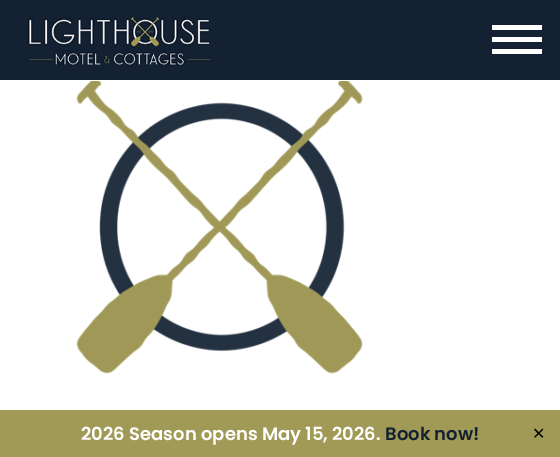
%!PS
<< /PageSize [560 457] >> setpagedevice
/rgb { 3 { 255 div 3 1 roll } repeat setrgbcolor } def
/font { [ exch dup neg 0 0 3 -1 roll 0 0 ] selectfont } def
/text { moveto show } def
/picture { 5 dict begin { /h /w /y /x /name } { exch def } forall
  gsave x y translate w h scale
  w h 8 [w 0 0 h 0 0] name (r) file false 3 colorimage grestore end } def
0 457 translate 1 -1 scale
4 setmiterlimit
255 255 255 rgb
0 0 560 457 rectfill
20 33 50 rgb
0 0 560 80 rectfill
(img_01.rgb) 28 16 183 50 picture
255 255 255 rgb
492 25 50 5 rectfill
492 37 50 5 rectfill
492 49 50 5 rectfill
(img_02.rgb) 76 81 287 293 picture
161 154 86 rgb
0 410 560 47 rectfill
/Poppins-SemiBold 18 font
255 255 255 rgb
(2026 Season opens May 15, 2026.) 81 440 text
20 33 50 rgb
(Book now!) 385 440 text
/DejaVuSans-Regular 16 font
0 0 0 rgb
(✕) 532 439 text
showpage
